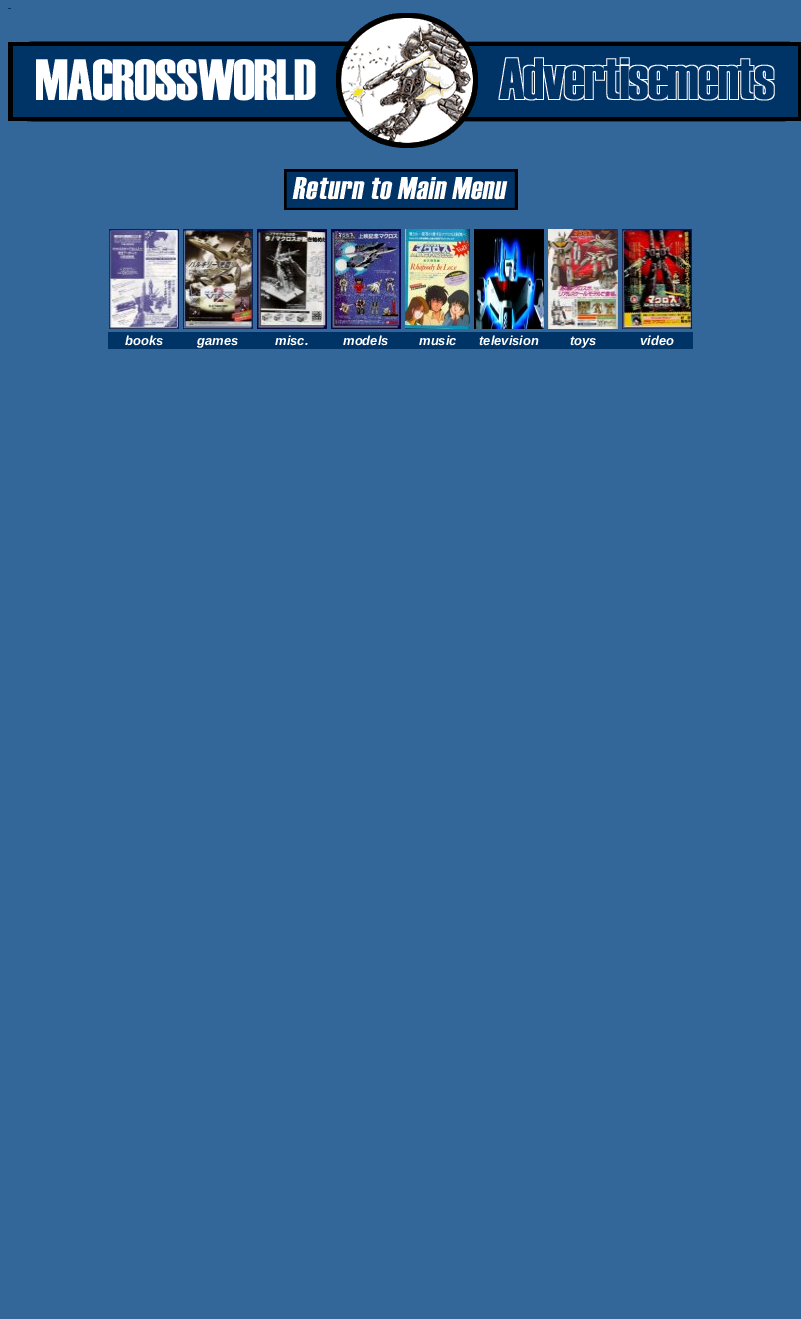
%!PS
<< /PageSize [801 1319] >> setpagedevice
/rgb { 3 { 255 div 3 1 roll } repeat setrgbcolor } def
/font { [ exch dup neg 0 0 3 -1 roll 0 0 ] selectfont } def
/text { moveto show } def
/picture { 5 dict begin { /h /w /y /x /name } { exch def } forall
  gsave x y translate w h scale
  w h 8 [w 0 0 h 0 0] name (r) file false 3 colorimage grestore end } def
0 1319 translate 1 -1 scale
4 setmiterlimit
51 102 153 rgb
0 0 801 1319 rectfill
(img_01.rgb) 8 8 793 140 picture
(img_02.rgb) 284 169 234 41 picture
(img_03.rgb) 109 229 70 100 picture
(img_04.rgb) 183 229 70 100 picture
(img_05.rgb) 257 229 70 100 picture
(img_06.rgb) 331 229 70 100 picture
(img_07.rgb) 405 229 65 100 picture
(img_08.rgb) 474 229 70 100 picture
(img_09.rgb) 548 229 70 100 picture
(img_10.rgb) 622 229 70 100 picture
0 51 102 rgb
108 332 585 17 rectfill
/LiberationSans-BoldItalic 13 font
255 255 255 rgb
(books) 125 345 text
(games) 197 345 text
(misc.) 275 345 text
(models) 343 345 text
(music) 419 345 text
(television) 479 345 text
(toys) 570 345 text
(video) 640 345 text
showpage
